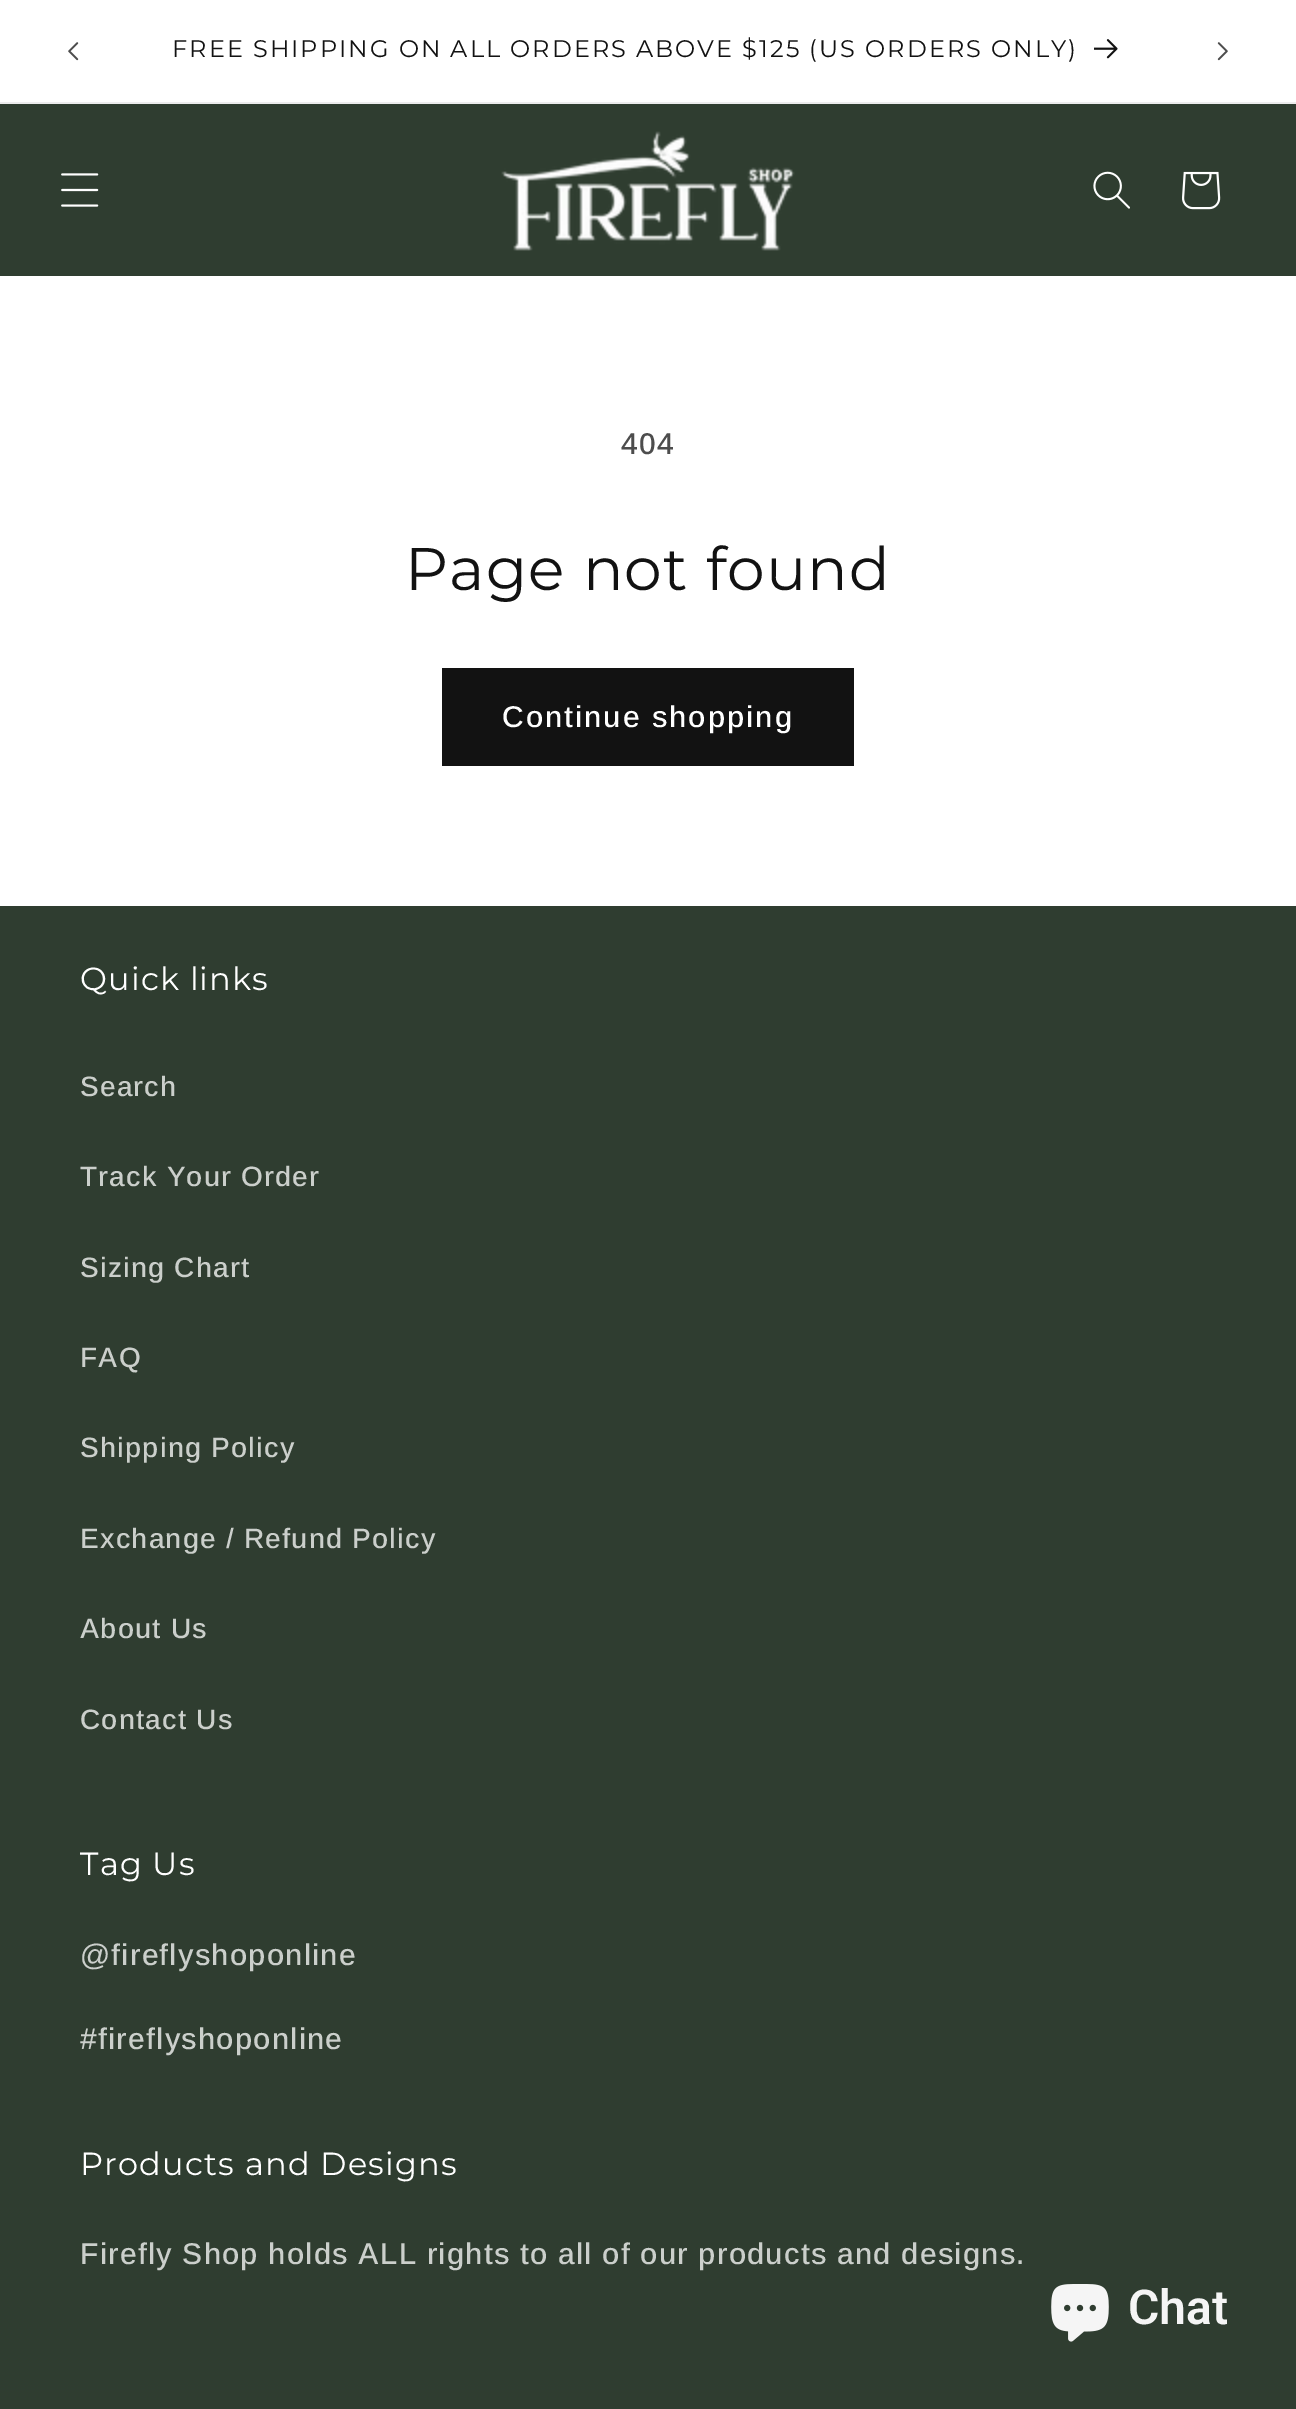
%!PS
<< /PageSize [1296 2409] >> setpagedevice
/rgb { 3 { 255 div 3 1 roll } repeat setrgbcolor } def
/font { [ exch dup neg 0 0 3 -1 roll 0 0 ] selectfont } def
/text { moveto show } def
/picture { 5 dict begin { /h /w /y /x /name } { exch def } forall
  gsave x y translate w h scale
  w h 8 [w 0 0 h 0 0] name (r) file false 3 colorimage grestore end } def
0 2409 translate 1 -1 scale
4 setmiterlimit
255 255 255 rgb
0 0 1296 2409 rectfill
236 236 236 rgb
0 102 1296 2 rectfill
(img_01.rgb) 68 42 11 19 picture
(img_02.rgb) 1094 39 24 20 picture
(img_03.rgb) 1217 42 11 19 picture
47 61 48 rgb
0 104 1296 172 rectfill
(img_04.rgb) 61 173 38 34 picture
(img_05.rgb) 501 131 294 120 picture
(img_06.rgb) 1093 171 37 38 picture
(img_07.rgb) 1182 171 39 39 picture
18 18 18 rgb
442 668 412 98 rectfill
47 61 48 rgb
0 906 1296 1503 rectfill
(img_08.rgb) 1051 2284 58 58 picture
/Montserrat-Regular 24 font
18 18 18 rgb
172 57 moveto 2 0 (FREE SHIPPING ON ALL ORDERS ABOVE $125 \(US ORDERS ONLY\)) ashow
/Arimo-Medium 30 font
77 77 77 rgb
621 454 moveto 1.2 0 (404) ashow
/Montserrat-Regular 60 font
18 18 18 rgb
405 590 moveto 1.2 0 (Page not found) ashow
/Arimo-Medium 30 font
255 255 255 rgb
502 727 moveto 2 0 (Continue shopping) ashow
/Montserrat-Regular 32 font
80 990 moveto 1.2 0 (Quick links) ashow
/Arimo-Medium 28 font
203 207 203 rgb
80 1096 moveto 1.2 0 (Search) ashow
80 1186 moveto 1.2 0 (Track Your Order) ashow
80 1277 moveto 1.2 0 (Sizing Chart) ashow
80 1367 moveto 1.2 0 (FAQ) ashow
80 1457 moveto 1.2 0 (Shipping Policy) ashow
80 1548 moveto 1.2 0 (Exchange / Refund Policy) ashow
80 1638 moveto 1.2 0 (About Us) ashow
80 1729 moveto 1.2 0 (Contact Us) ashow
/Montserrat-Regular 32 font
255 255 255 rgb
80 1875 moveto 1.2 0 (Tag Us) ashow
/Arimo-Medium 30 font
203 207 203 rgb
80 1965 moveto 1.2 0 (@fireflyshoponline) ashow
80 2049 moveto 1.2 0 (#fireflyshoponline) ashow
/Montserrat-Regular 32 font
255 255 255 rgb
80 2175 moveto 1.2 0 (Products and Designs) ashow
/Arimo-Medium 30 font
203 207 203 rgb
80 2264 moveto 1.2 0 (Firefly Shop holds ALL rights to all of our products and designs.) ashow
/Roboto-SemiBold 48 font
245 245 245 rgb
(Chat) 1128 2324 text
showpage
